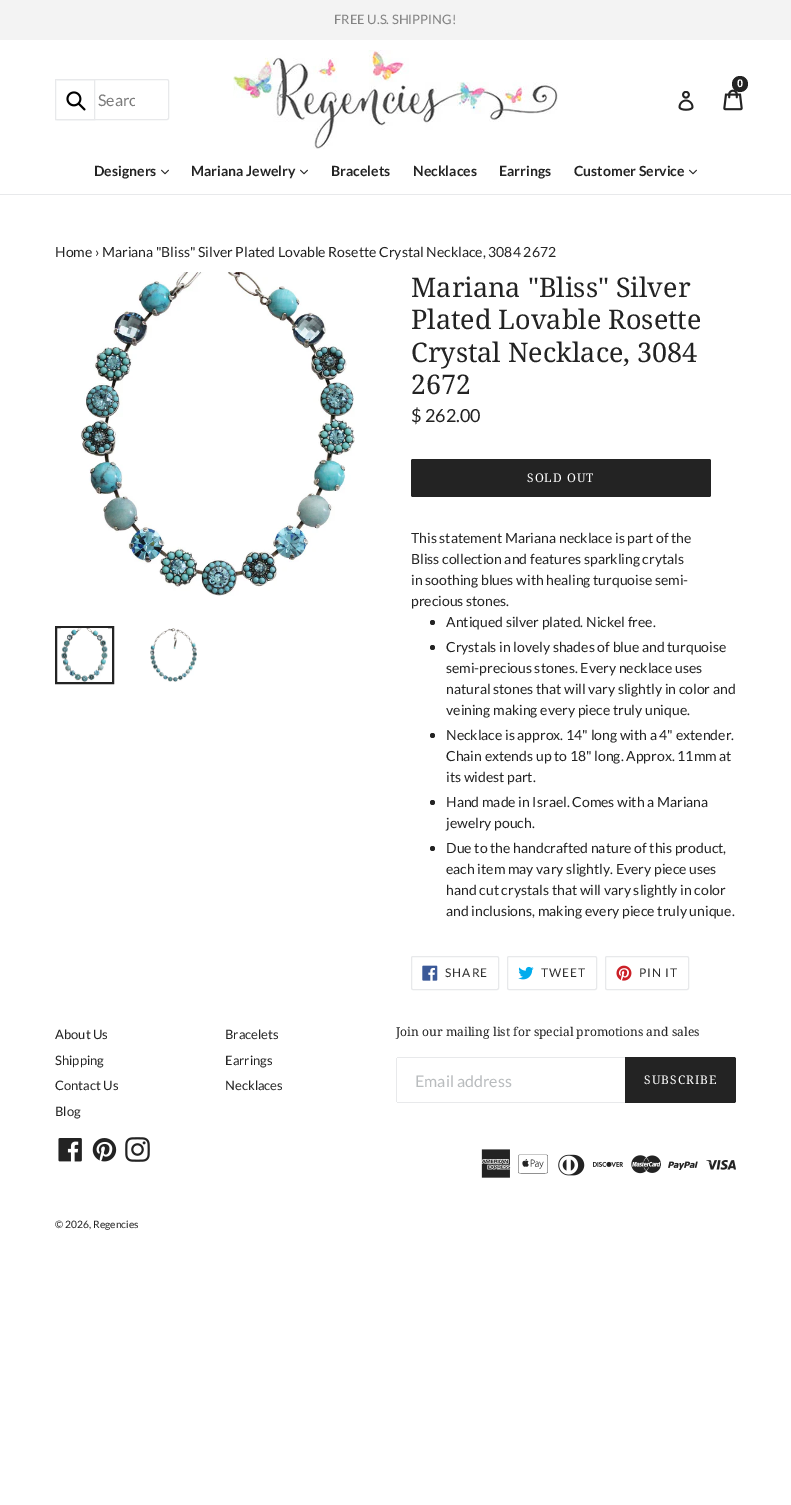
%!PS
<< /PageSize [791 1505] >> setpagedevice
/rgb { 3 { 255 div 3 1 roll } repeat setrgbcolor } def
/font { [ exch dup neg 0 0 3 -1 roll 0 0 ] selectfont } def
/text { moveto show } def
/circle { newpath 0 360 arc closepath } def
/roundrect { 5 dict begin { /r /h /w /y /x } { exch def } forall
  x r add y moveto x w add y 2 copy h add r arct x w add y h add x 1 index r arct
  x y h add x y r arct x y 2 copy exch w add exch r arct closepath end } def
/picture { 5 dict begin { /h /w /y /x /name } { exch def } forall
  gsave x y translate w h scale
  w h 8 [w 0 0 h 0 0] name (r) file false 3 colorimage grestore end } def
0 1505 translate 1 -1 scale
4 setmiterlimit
255 255 255 rgb
0 0 791 1505 rectfill
243 243 243 rgb
0 0 791 40 rectfill
(img_01.rgb) 233 50 325 99 picture
(img_02.rgb) 723 89 20 22 picture
35 35 35 rgb
740 84 8 circle fill
(img_03.rgb) 678 91 16 20 picture
232 233 235 rgb
55.5 79.5 113 40 1.5 roundrect stroke
255 255 255 rgb
56 80 1 39 rectfill
232 233 235 rgb
55.5 79.5 39 40 rectstroke
(img_04.rgb) 66 91 20 20 picture
0 194 791 1 rectfill
(img_05.rgb) 161 169 8 6 picture
(img_05.rgb) 300 169 8 6 picture
(img_05.rgb) 689 169 8 6 picture
(img_06.rgb) 80 272 275 324 picture
35 35 35 rgb
2 setlinewidth
56 627 57 56 rectstroke
(img_07.rgb) 61 628 47 54 picture
(img_08.rgb) 150 628 47 54 picture
411 459 300 38 2 roundrect fill
432.5 622.5 2.5 circle fill
432.5 647.5 2.5 circle fill
432.5 735.5 2.5 circle fill
432.5 802.5 2.5 circle fill
432.5 848.5 2.5 circle fill
232 233 235 rgb
1 setlinewidth
411.5 956.5 87 33 1.5 roundrect stroke
(img_09.rgb) 422 965 16 16 picture
507.5 956.5 89 33 1.5 roundrect stroke
(img_10.rgb) 518 966 16 14 picture
605.5 956.5 83 33 1.5 roundrect stroke
(img_11.rgb) 616 965 16 16 picture
397 1057 228 1 rectfill
397 1102 228 1 rectfill
396 1058 1 44 rectfill
35 35 35 rgb
625 1057 moveto 109 0 rlineto 1 0 2 1 2 2 rcurveto 0 42 rlineto 0 1 -1 2 -2 2 rcurveto -109 0 rlineto closepath fill
(img_12.rgb) 58 1138 24 24 picture
(img_13.rgb) 92 1138 25 24 picture
(img_14.rgb) 125 1137 25 25 picture
(img_15.rgb) 481 1149 30 29 picture
(img_16.rgb) 518 1154 30 20 picture
(img_17.rgb) 558 1154 27 22 picture
(img_18.rgb) 593 1161 30 6 picture
(img_19.rgb) 631 1155 30 19 picture
(img_20.rgb) 668 1161 30 9 picture
(img_21.rgb) 706 1160 30 10 picture
/Lato-Regular 13 font
131 131 131 rgb
(FREE U.S. SHIPPING!) 334 24 text
/LiberationSans-Bold 11 font
255 255 255 rgb
(0) 737 87 text
gsave
98 90 37 19 rectclip
/Lato-Regular 16 font
123 123 123 rgb
(Searc) 98 106 text
grestore
/Lato-Bold 14 font
35 35 35 rgb
(Designers) 94 176 text
(Mariana Jewelry) 191 176 text
(Bracelets) 331 176 text
(Necklaces) 413 176 text
(Earrings) 499 176 text
(Customer Service) 574 176 text
/Lato-Regular 14 font
(Home › Mariana "Bliss" Silver Plated Lovable Rosette Crystal Necklace, 3084 2672) 55 257 text
/DroidSerif-Regular 27 font
(Mariana "Bliss" Silver) 411 297 text
(Plated Lovable Rosette) 411 329 text
(Crystal Necklace, 3084) 411 362 text
(2672) 411 394 text
/Lato-Regular 18 font
($ 262.00) 411 422 text
/DroidSerif-Regular 12 font
255 255 255 rgb
527 482 moveto 1 0 (SOLD OUT) ashow
/Lato-Regular 14 font
35 35 35 rgb
(This statement Mariana necklace is part of the) 411 543 text
(Bliss collection and features sparkling crytals) 411 564 text
(in soothing blues with healing turquoise semi-) 411 585 text
(precious stones.) 411 606 text
(Antiqued silver plated. Nickel free.) 446 627 text
(Crystals in lovely shades of blue and turquoise) 446 652 text
(semi-precious stones. Every necklace uses) 446 673 text
(natural stones that will vary slightly in color and) 446 694 text
(veining making every piece truly unique.) 446 715 text
(Necklace is approx. 14" long with a 4" extender.) 446 740 text
(Chain extends up to 18" long. Approx. 11mm at) 446 761 text
(its widest part.) 446 782 text
(Hand made in Israel. Comes with a Mariana) 446 807 text
(jewelry pouch.) 446 828 text
(Due to the handcrafted nature of this product,) 446 853 text
(each item may vary slightly. Every piece uses) 446 874 text
(hand cut crystals that will vary slightly in color) 446 895 text
(and inclusions, making every piece truly unique.) 446 916 text
/Lato-Regular 12 font
48 48 48 rgb
445 977 moveto 1 0 (SHARE) ashow
541 977 moveto 1 0 (TWEET) ashow
639 977 moveto 1 0 (PIN IT) ashow
/Lato-Regular 13 font
35 35 35 rgb
(About Us) 55 1039 text
(Shipping) 55 1065 text
(Contact Us) 55 1090 text
(Blog) 55 1116 text
(Bracelets) 225 1039 text
(Earrings) 225 1065 text
(Necklaces) 225 1090 text
/DroidSerif-Regular 12.1 font
(Join our mailing list for special promotions and sales) 396 1036 text
/Lato-Regular 16 font
185 188 190 rgb
(Email address) 415 1087 text
/DroidSerif-Regular 12 font
255 255 255 rgb
644 1084 moveto 1 0 (SUBSCRIBE) ashow
/Lato-Regular 10.25 font
35 35 35 rgb
(© 2026, Regencies) 55 1228 text
showpage
